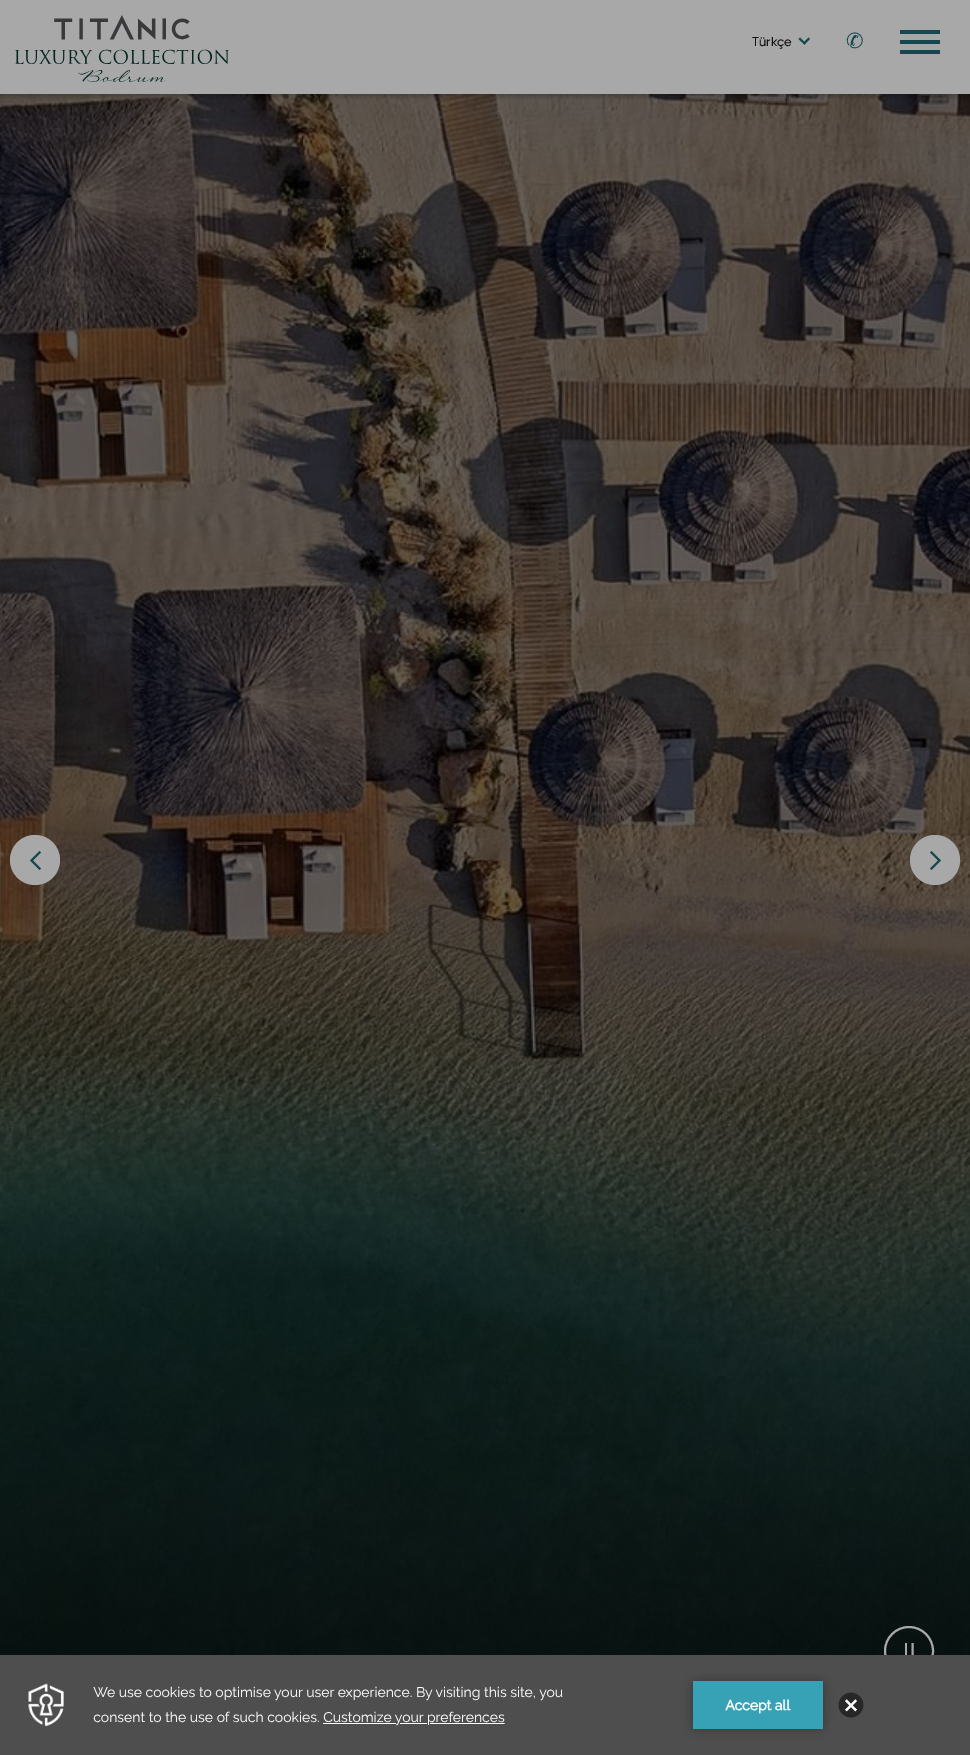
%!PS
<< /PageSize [970 1755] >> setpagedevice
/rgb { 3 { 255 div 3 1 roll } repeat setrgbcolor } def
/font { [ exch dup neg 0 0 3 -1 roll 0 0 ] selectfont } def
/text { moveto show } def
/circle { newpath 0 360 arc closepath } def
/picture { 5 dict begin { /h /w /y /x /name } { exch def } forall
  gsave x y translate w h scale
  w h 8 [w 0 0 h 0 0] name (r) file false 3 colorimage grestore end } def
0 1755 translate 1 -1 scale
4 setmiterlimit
168 168 168 rgb
0 0 970 1755 rectfill
(img_01.rgb) 15 15 214 67 picture
22 71 79 rgb
808.5 37.5 moveto 1.5 1.5 rlineto -5.5 5.5 rlineto -1.5 -1.5 rlineto closepath fill
800 37.5 moveto 5.5 5.5 rlineto -1 1.5 rlineto -6 -5.5 rlineto closepath fill
900 30 40 4 rectfill
900 40 40 4 rectfill
900 50 40 4 rectfill
(img_02.rgb) 0 94 970 1561 picture
80 77 75 rgb
0 106 1 1 rectfill
168 168 168 rgb
35 860 25 circle fill
22 71 79 rgb
30 860.5 moveto 9.5 -9.5 rlineto 1.5 1.5 rlineto -8 8 rlineto 8 8 rlineto -1.5 1.5 rlineto closepath fill
168 168 168 rgb
935 860 25 circle fill
22 71 79 rgb
941 860.5 moveto -9.5 9.5 rlineto -1.5 -1.5 rlineto 8 -8 rlineto -8 -8 rlineto 1.5 -1.5 rlineto closepath fill
168 168 168 rgb
2 setlinewidth
909 1651 24 circle stroke
905 1643 2 16 rectfill
912.5 1643 moveto 0 15.5 rlineto stroke
(img_03.rgb) 0 1655 970 100 picture
/Gilroy-Medium 13 font
18 18 18 rgb
(Türkçe) 752 46 text
/Gilroy-Regular 10 font
75 67 62 rgb
(Русский) 759 103 text
/DejaVuSans-Regular 21 font
22 71 79 rgb
(✆) 846 48 text
showpage
